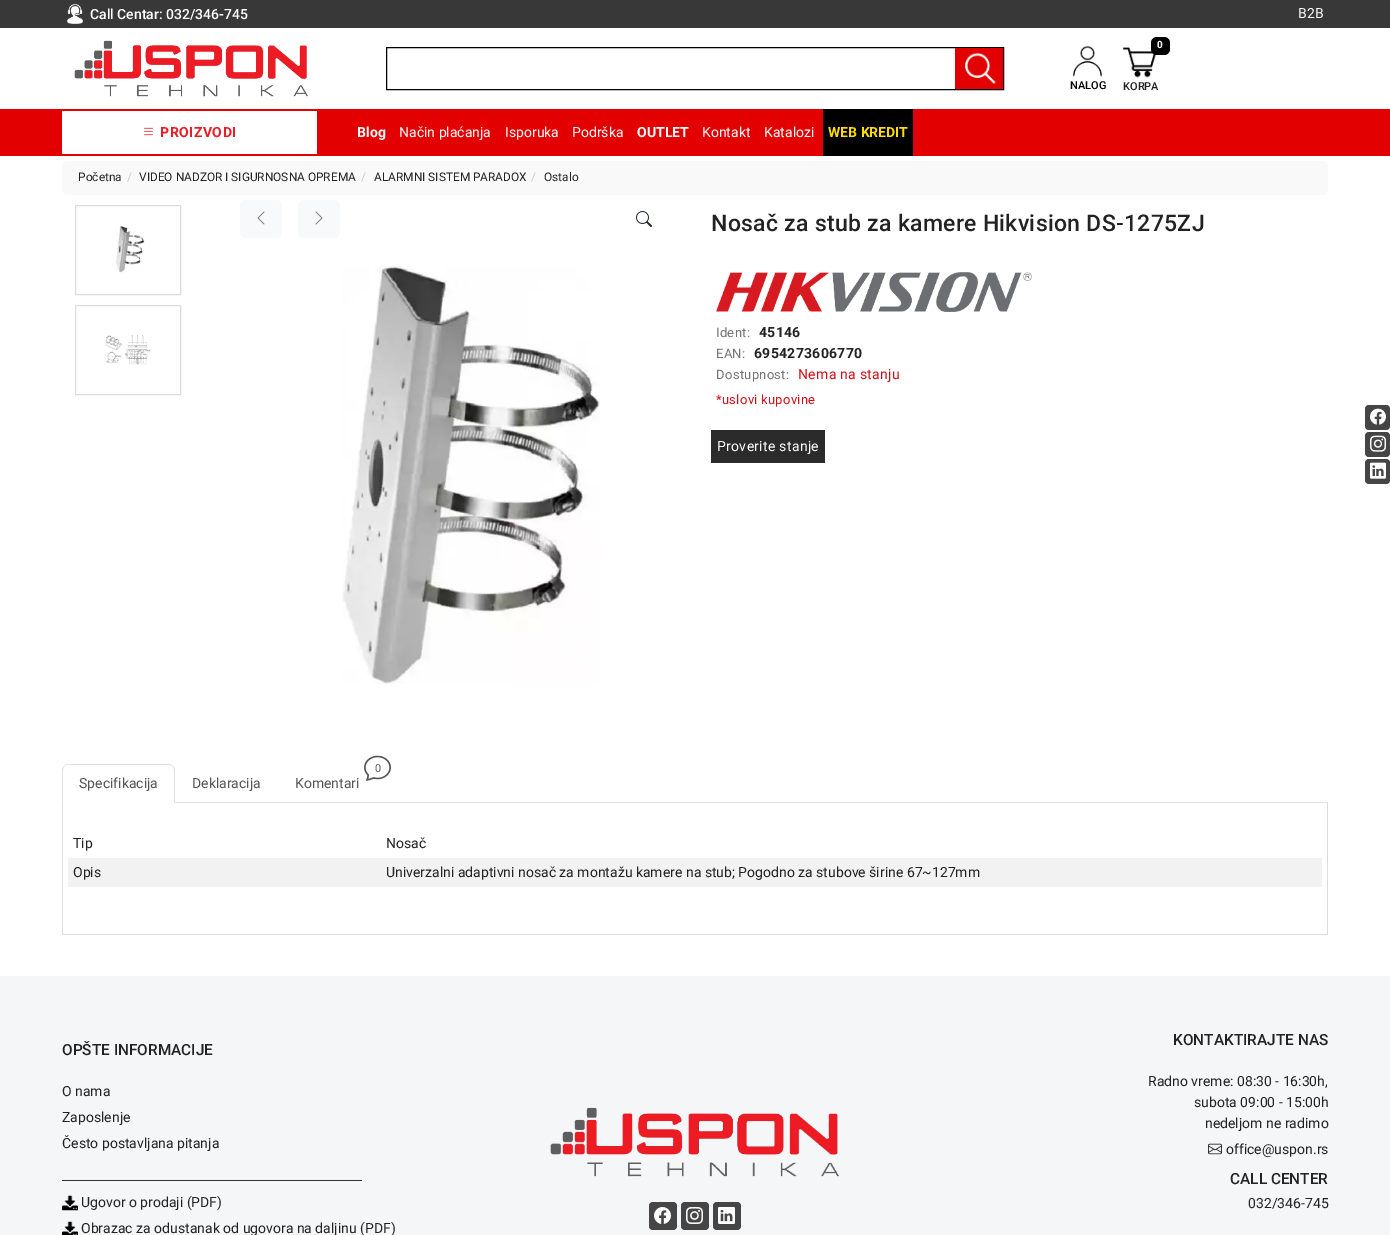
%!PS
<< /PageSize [1390 1235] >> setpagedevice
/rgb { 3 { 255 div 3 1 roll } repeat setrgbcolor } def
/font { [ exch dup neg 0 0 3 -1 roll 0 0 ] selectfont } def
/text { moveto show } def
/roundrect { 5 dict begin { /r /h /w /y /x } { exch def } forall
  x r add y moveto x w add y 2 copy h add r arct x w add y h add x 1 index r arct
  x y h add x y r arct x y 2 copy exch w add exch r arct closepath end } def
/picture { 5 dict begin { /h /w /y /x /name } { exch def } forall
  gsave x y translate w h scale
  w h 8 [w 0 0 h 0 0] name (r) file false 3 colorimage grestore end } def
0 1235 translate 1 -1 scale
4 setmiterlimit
255 255 255 rgb
0 0 1390 1235 rectfill
56 56 56 rgb
0 0 1390 28 rectfill
(img_01.rgb) 67 4 16 20 picture
69 69 69 rgb
1365 405 25 25 4 roundrect fill
(img_02.rgb) 1370 408 16 17 picture
1365 432 25 25 4 roundrect fill
(img_03.rgb) 1370 435 16 17 picture
1365 459 25 25 4 roundrect fill
(img_04.rgb) 1370 462 16 17 picture
(img_05.rgb) 74 40 234 57 picture
0 0 0 rgb
386.5 47.5 617 42 rectstroke
227 0 0 rgb
955 48 48 41 rectfill
(img_06.rgb) 964 52 32 32 picture
(img_07.rgb) 1073 45 29 32 picture
(img_08.rgb) 1123 46 34 32 picture
0 0 0 rgb
1151 37 19 18 6 roundrect fill
227 0 0 rgb
0 109 1390 47 rectfill
255 255 255 rgb
62 111 255 43 rectfill
(img_09.rgb) 144 127 9 9 picture
0 0 0 rgb
823 109 90 47 rectfill
249 249 249 rgb
62 161 1266 34 6 roundrect fill
221 221 221 rgb
75.5 205.5 105 89 rectstroke
(img_10.rgb) 116 226 29 47 picture
75.5 305.5 105 89 rectstroke
(img_11.rgb) 105 335 46 30 picture
248 249 250 rgb
240 200 42 38 6 roundrect fill
(img_12.rgb) 257 211 8 14 picture
298 200 42 38 6 roundrect fill
(img_13.rgb) 315 211 8 14 picture
(img_14.rgb) 636 211 16 16 picture
(img_15.rgb) 342 266 258 418 picture
(img_16.rgb) 716 272 316 40 picture
43 43 43 rgb
711 430 114 33 rectfill
222 226 230 rgb
175 802 1153 1 rectfill
68 764 moveto -2 0 -3 1 -4 2 rcurveto 3 -1 rlineto 103 0 rlineto 3 1 rlineto -1 -1 -3 -2 -4 -2 rcurveto closepath fill
175 803 moveto 0 -33 rlineto 0 -1.5 -1 -3 -2 -4 rcurveto -0.5 0.5 rlineto 1 0.5 1.5 2 1.5 3.5 rcurveto 0 32 rlineto closepath fill
255 255 255 rgb
175 803 moveto -1 -1 rlineto -111 0 rlineto -1 1 rlineto closepath fill
222 226 230 rgb
62 803 moveto 1 -1 rlineto 0 -32 rlineto 0 -1.5 0.5 -3 1.5 -3.5 rcurveto -0.5 -0.5 rlineto -1 1 -2 2.5 -2 4 rcurveto closepath fill
(img_17.rgb) 364 755 27 26 picture
221 221 221 rgb
1327 803 1 132 rectfill
62 934 1266 1 rectfill
62 803 1 132 rectfill
242 242 242 rgb
68 858 1254 29 rectfill
245 246 248 rgb
0 976 1390 259 rectfill
51 51 51 rgb
62 1180 300 1 rectfill
(img_18.rgb) 62 1195 16 16 picture
(img_19.rgb) 62 1221 16 14 picture
(img_20.rgb) 550 1107 289 70 picture
69 69 69 rgb
649 1202 28 28 4 roundrect fill
(img_21.rgb) 654 1207 17 17 picture
681 1202 28 28 4 roundrect fill
(img_22.rgb) 686 1207 17 17 picture
713 1202 28 28 4 roundrect fill
(img_23.rgb) 718 1207 17 17 picture
(img_24.rgb) 1208 1143 14 12 picture
/Roboto-Medium 14 font
255 255 255 rgb
(Call Centar: 032/346-745) 90 19 text
/Roboto-Regular 14 font
(B2B) 1298 18 text
/Roboto-Medium 11 font
0 0 0 rgb
(NALOG) 1070 89 text
/Roboto-Bold 10 font
255 255 255 rgb
(0) 1157 48 text
/Roboto-Medium 11 font
34 34 34 rgb
(KORPA) 1123 90 text
/Roboto-Bold 14 font
237 28 36 rgb
160 137 moveto 0.5 0 (PROIZVODI) ashow
255 255 255 rgb
(Blog) 357 137 text
/Roboto-Regular 14 font
(Način plaćanja) 399 137 text
(Isporuka) 505 137 text
(Podrška) 572 137 text
/Roboto-Bold 14 font
(OUTLET) 637 137 text
/Roboto-Regular 14 font
(Kontakt) 702 137 text
(Katalozi) 764 137 text
/Roboto-Bold 14 font
255 221 0 rgb
(WEB KREDIT) 828 137 text
/Roboto-Regular 11.9 font
34 34 34 rgb
(Početna) 78 181 text
204 204 204 rgb
(/) 127 181 text
34 34 34 rgb
(VIDEO NADZOR I SIGURNOSNA OPREMA) 139 181 text
204 204 204 rgb
(/) 361 181 text
34 34 34 rgb
(ALARMNI SISTEM PARADOX) 374 181 text
204 204 204 rgb
(/) 531 181 text
34 34 34 rgb
(Ostalo) 544 181 text
/Roboto-Medium 23 font
711 231 moveto 0.3 0 (Nosač za stub za kamere Hikvision DS-1275ZJ) ashow
/Roboto-Regular 13 font
116 116 116 rgb
716 337 moveto 0.3 0 (Ident:) ashow
/Roboto-Bold 14 font
34 34 34 rgb
759 337 moveto 0.3 0 (45146) ashow
/Roboto-Regular 13 font
116 116 116 rgb
716 358 moveto 0.3 0 (EAN:) ashow
/Roboto-Bold 14 font
34 34 34 rgb
754 358 moveto 0.3 0 (6954273606770) ashow
/Roboto-Regular 13 font
116 116 116 rgb
716 379 moveto 0.3 0 (Dostupnost:) ashow
/Roboto-Regular 14 font
212 13 24 rgb
798 379 moveto 0.3 0 (Nema na stanju) ashow
/Roboto-Regular 13 font
716 404 moveto 0.3 0 (*uslovi kupovine) ashow
/Roboto-Regular 14 font
255 255 255 rgb
717 451 moveto 0.3 0 (Proverite stanje) ashow
85 85 85 rgb
(Specifikacija) 79 788 text
(Deklaracija) 192 788 text
/Roboto-Regular 11 font
(0) 375 772 text
/Roboto-Regular 14 font
(Komentari) 295 788 text
34 34 34 rgb
(Tip) 73 848 text
(Nosač) 386 848 text
(Opis) 73 877 text
(Univerzalni adaptivni nosač za montažu kamere na stub; Pogodno za stubove širine 67~127mm) 386 877 text
/Roboto-Medium 15.4 font
(OPŠTE INFORMACIJE) 62 1055 text
/Roboto-Regular 14 font
(O nama) 62 1096 text
(Zaposlenje) 62 1122 text
(Često postavljana pitanja) 62 1148 text
(Ugovor o prodaji \(PDF\)) 81 1207 text
(Obrazac za odustanak od ugovora na daljinu \(PDF\)) 81 1233 text
/Roboto-Medium 15.4 font
(KONTAKTIRAJTE NAS) 1173 1045 text
/Roboto-Regular 14 font
(Radno vreme: 08:30 - 16:30h,) 1148 1086 text
(subota 09:00 - 15:00h) 1194 1107 text
(nedeljom ne radimo) 1205 1128 text
(office@uspon.rs) 1226 1154 text
/Roboto-Medium 15.4 font
(CALL CENTER) 1230 1184 text
/Roboto-Regular 14 font
(032/346-745) 1248 1208 text
showpage
